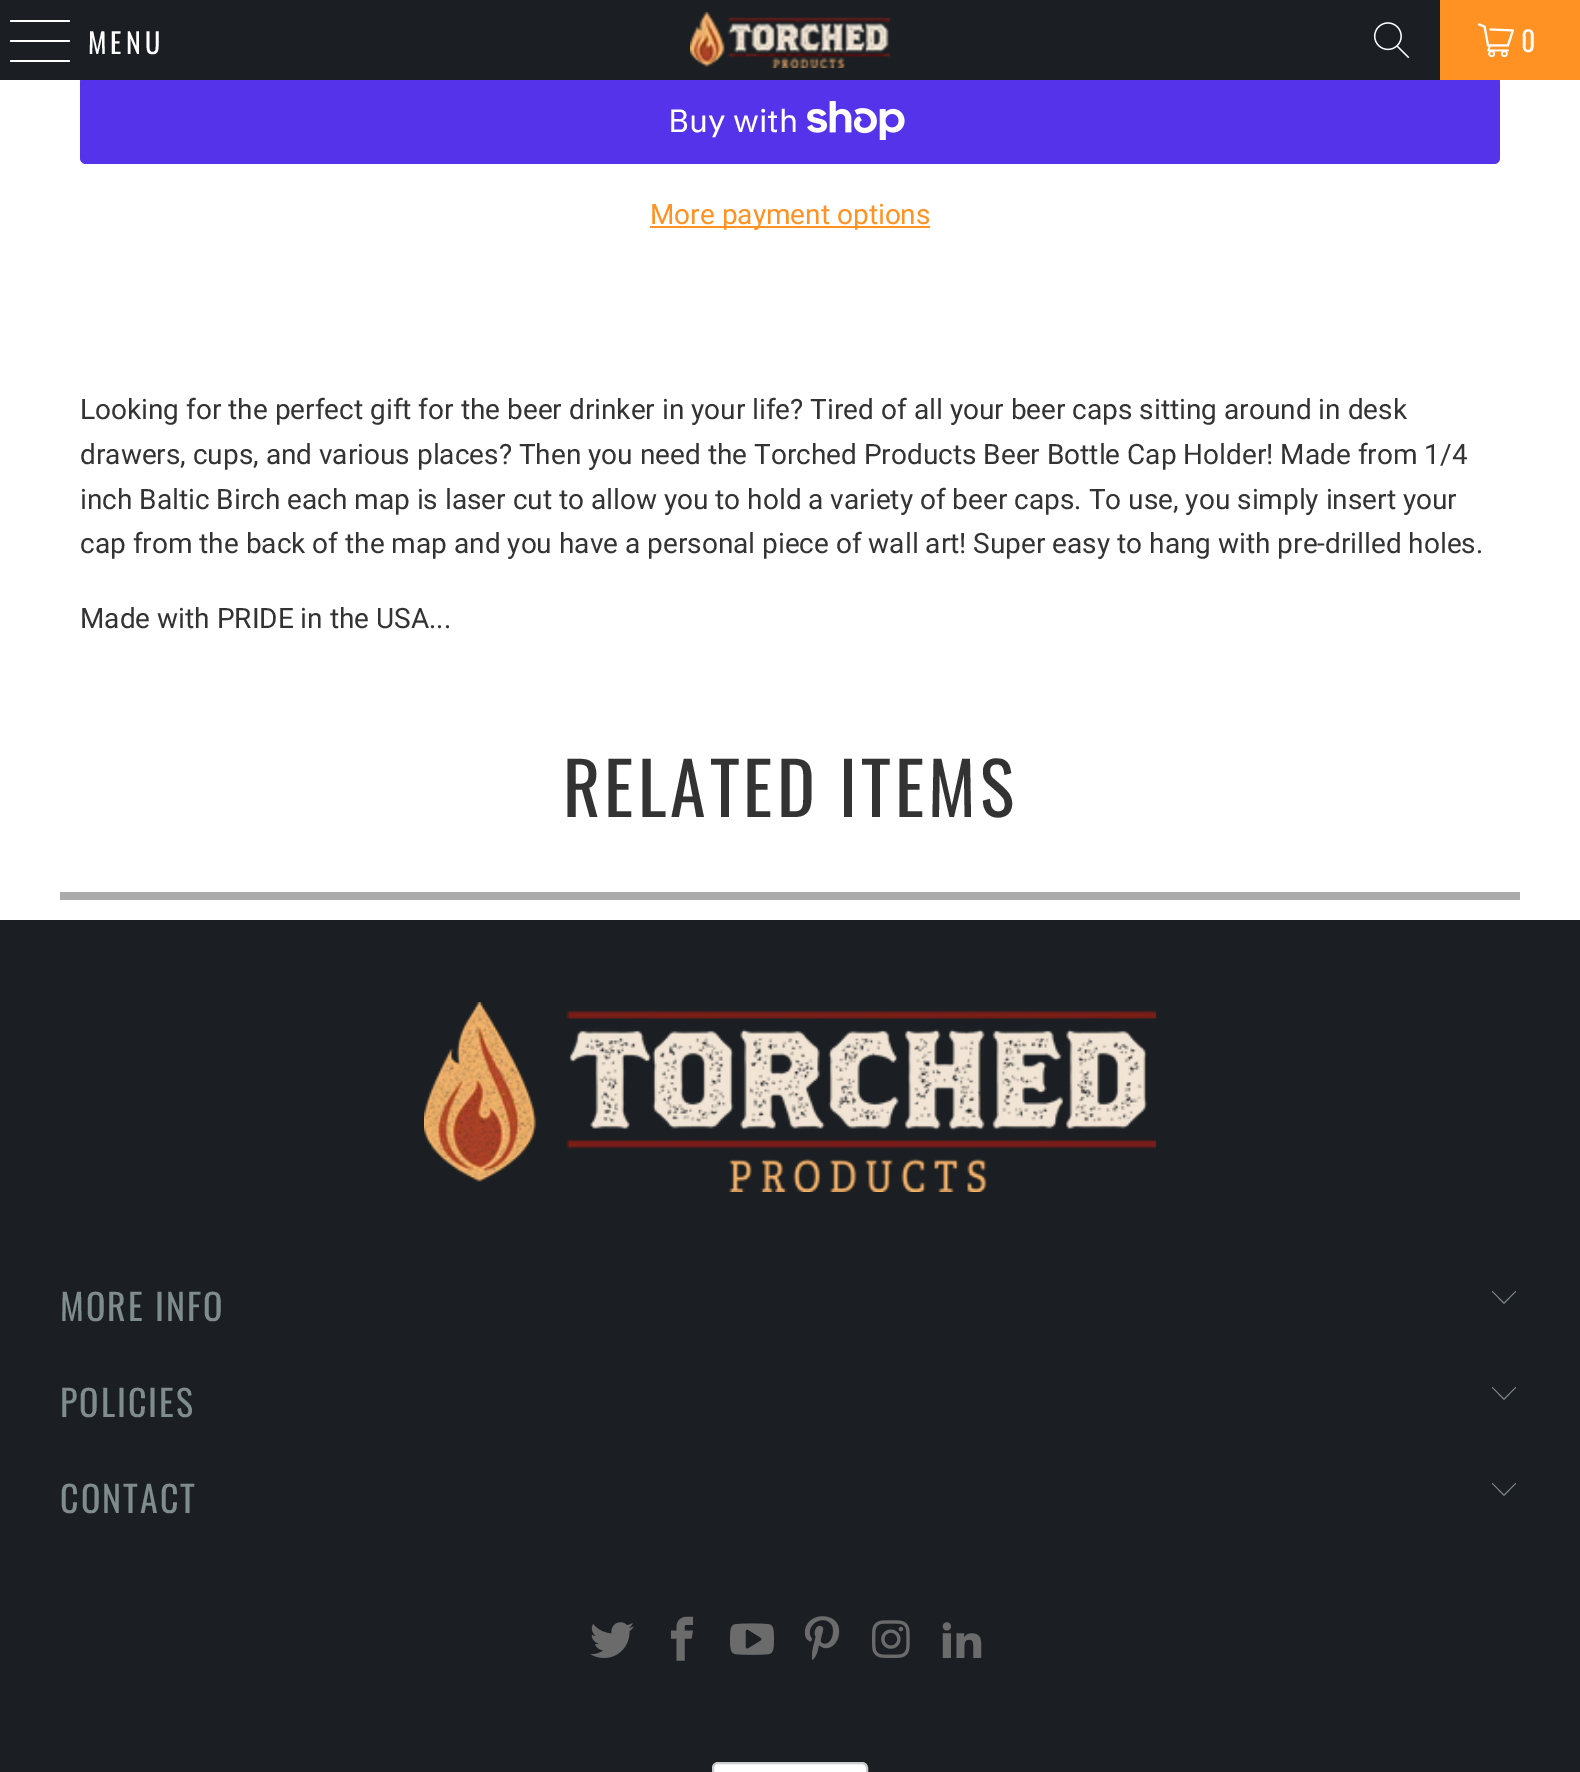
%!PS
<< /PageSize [1580 1772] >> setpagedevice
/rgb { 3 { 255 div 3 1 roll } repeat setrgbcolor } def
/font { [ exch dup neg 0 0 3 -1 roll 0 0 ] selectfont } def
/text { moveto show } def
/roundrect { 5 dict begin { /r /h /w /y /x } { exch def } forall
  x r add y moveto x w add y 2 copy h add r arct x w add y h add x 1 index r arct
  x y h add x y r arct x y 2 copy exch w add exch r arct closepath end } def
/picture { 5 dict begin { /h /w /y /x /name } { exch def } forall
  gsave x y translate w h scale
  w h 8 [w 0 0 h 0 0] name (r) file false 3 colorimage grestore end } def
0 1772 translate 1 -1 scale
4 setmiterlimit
255 255 255 rgb
0 0 1580 1772 rectfill
84 51 235 rgb
80 76 1420 88 6 roundrect fill
27 31 35 rgb
0 0 1440 80 rectfill
255 255 255 rgb
10 20 60 2 1 roundrect fill
10 40 60 2 1 roundrect fill
10 60 60 2 1 roundrect fill
(img_01.rgb) 690 12 200 56 picture
(img_02.rgb) 1373 22 37 37 picture
255 146 34 rgb
1440 0 140 80 rectfill
(img_03.rgb) 1478 23 36 35 picture
(img_04.rgb) 807 101 98 39 picture
650 226 280 2 rectfill
170 170 170 rgb
60 892 1460 8 rectfill
27 31 35 rgb
0 920 1580 852 rectfill
(img_05.rgb) 424 1002 732 190 picture
127 140 141 rgb
1504 1304 moveto -12 -12.5 rlineto 0.5 -0.5 rlineto 11.5 11.5 rlineto 11.5 -11.5 rlineto 0.5 0.5 rlineto closepath fill
1504 1400 moveto -12 -12.5 rlineto 0.5 -0.5 rlineto 11.5 11.5 rlineto 11.5 -11.5 rlineto 0.5 0.5 rlineto closepath fill
1504 1496 moveto -12 -12.5 rlineto 0.5 -0.5 rlineto 11.5 11.5 rlineto 11.5 -11.5 rlineto 0.5 0.5 rlineto closepath fill
(img_06.rgb) 590 1622 44 36 picture
(img_07.rgb) 671 1616 22 45 picture
(img_08.rgb) 730 1623 44 32 picture
(img_09.rgb) 804 1616 36 44 picture
(img_10.rgb) 872 1620 38 38 picture
(img_11.rgb) 942 1622 40 36 picture
255 255 255 rgb
713 1763 154 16 5 roundrect gsave fill grestore
204 204 204 rgb
2 setlinewidth
stroke
/Oswald-Regular 28 font
255 255 255 rgb
88 54 moveto 4 0 (MENU) ashow
1521 52 moveto 2 0 (0) ashow
/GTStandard-Regular 32 font
(Buy with) 668 132 text
/Roboto-Regular 28 font
255 146 34 rgb
(More payment options) 650 224 text
51 51 51 rgb
(Looking for the perfect gift for the beer drinker in your life? Tired of all your beer caps sitting around in desk) 80 419 text
(drawers, cups, and various places? Then you need the Torched Products Beer Bottle Cap Holder! Made from 1/4) 80 464 text
(inch Baltic Birch each map is laser cut to allow you to hold a variety of beer caps. To use, you simply insert your) 80 509 text
(cap from the back of the map and you have a personal piece of wall art! Super easy to hang with pre-drilled holes.) 80 553 text
(Made with PRIDE in the USA...) 80 628 text
/Oswald-Regular 72 font
563 817 moveto 4 0 (RELATED ITEMS) ashow
/Oswald-Regular 36 font
127 140 141 rgb
60 1321 moveto 2 0 (MORE INFO) ashow
60 1417 moveto 2 0 (POLICIES) ashow
60 1513 moveto 2 0 (CONTACT) ashow
showpage
